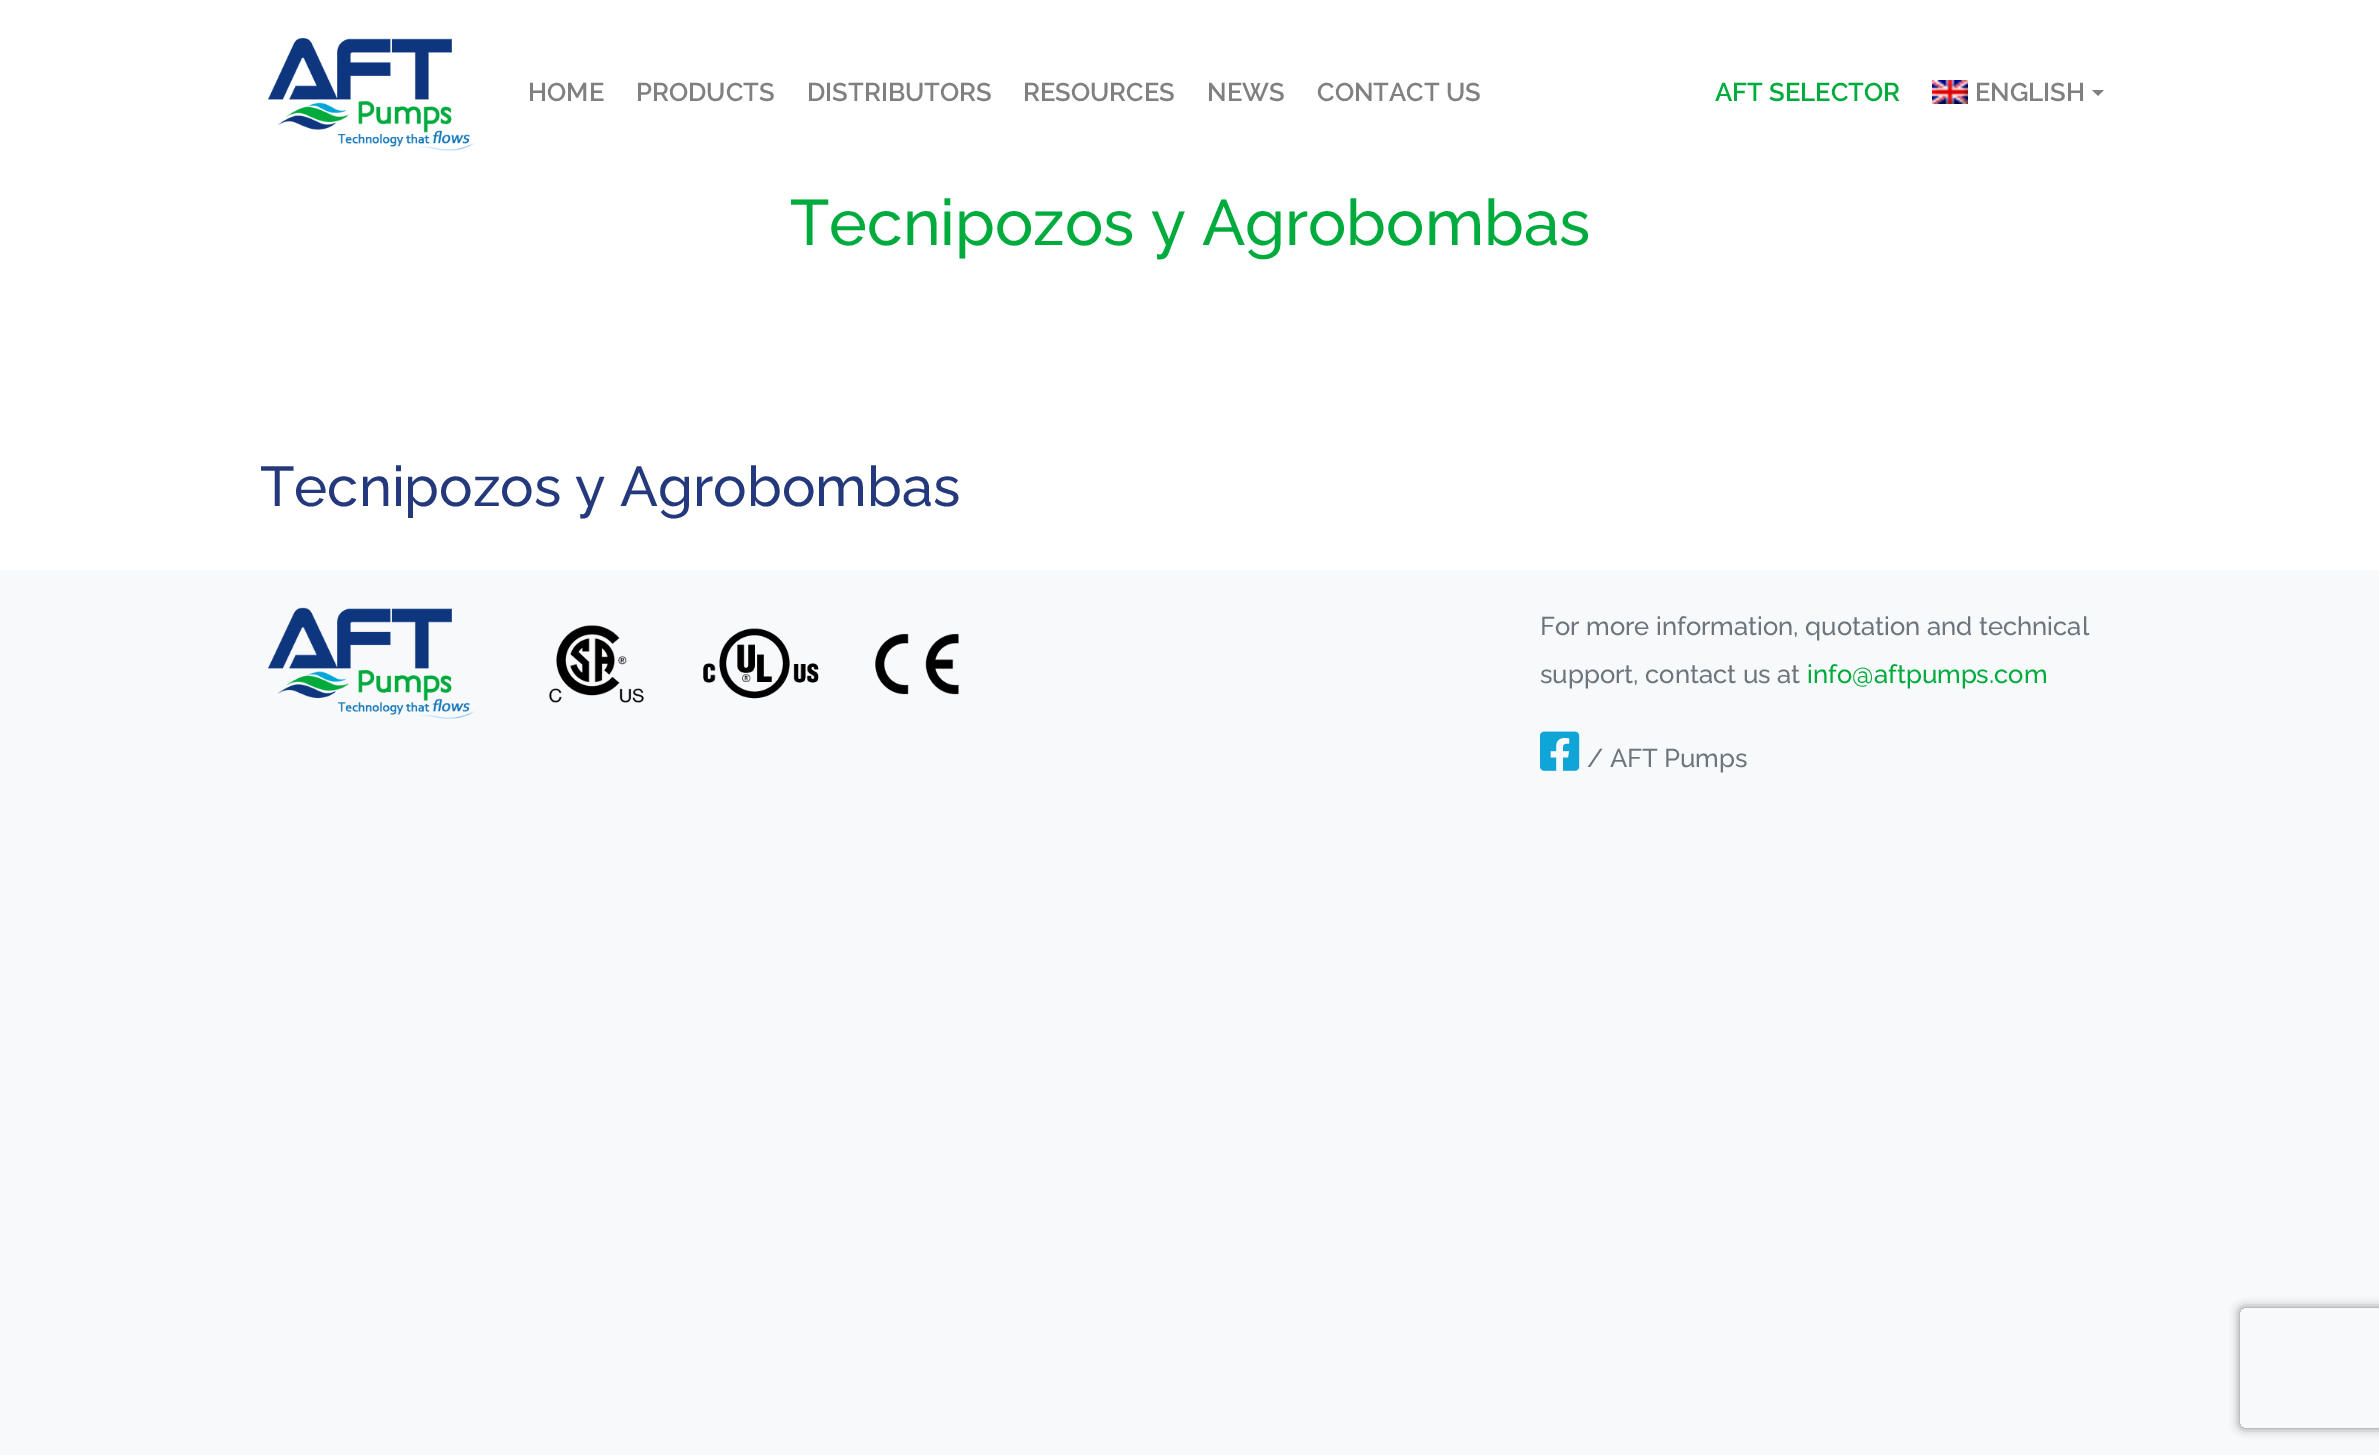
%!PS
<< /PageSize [2379 1455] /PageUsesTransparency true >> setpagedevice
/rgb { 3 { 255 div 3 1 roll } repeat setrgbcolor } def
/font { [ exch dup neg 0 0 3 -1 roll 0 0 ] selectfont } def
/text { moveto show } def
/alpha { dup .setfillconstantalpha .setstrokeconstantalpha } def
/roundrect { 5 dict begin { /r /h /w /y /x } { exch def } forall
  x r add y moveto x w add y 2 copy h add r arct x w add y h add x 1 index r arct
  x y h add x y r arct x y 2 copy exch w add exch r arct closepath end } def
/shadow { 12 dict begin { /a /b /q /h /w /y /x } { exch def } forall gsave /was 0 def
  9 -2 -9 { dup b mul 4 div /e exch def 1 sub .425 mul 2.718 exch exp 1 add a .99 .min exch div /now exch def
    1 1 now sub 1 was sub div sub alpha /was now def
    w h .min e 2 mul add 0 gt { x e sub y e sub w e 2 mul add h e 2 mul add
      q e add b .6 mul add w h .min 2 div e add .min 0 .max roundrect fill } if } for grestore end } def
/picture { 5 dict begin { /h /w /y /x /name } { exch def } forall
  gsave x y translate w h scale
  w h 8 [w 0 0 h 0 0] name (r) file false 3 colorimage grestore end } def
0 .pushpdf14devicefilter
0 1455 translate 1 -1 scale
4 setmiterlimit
248 249 250 rgb
0 0 2379 1455 rectfill
255 255 255 rgb
0 0 2379 570 rectfill
(img_01.rgb) 268 38 207 113 picture
(img_02.rgb) 1932 80 36 24 picture
128 128 128 rgb
2092 90 moveto 12 0 rlineto -6 6 rlineto closepath fill
(img_03.rgb) 268 607 207 112 picture
(img_04.rgb) 549 625 95 78 picture
(img_05.rgb) 703 628 116 71 picture
(img_06.rgb) 875 633 84 62 picture
(img_07.rgb) 1540 731 40 40 picture
gsave
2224 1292 moveto 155 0 rlineto 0 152 rlineto -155 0 rlineto closepath 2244 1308 moveto 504 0 rlineto 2 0 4 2 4 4 rcurveto 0 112 rlineto 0 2 -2 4 -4 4 rcurveto -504 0 rlineto -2 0 -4 -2 -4 -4 rcurveto 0 -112 rlineto 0 -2 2 -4 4 -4 rcurveto closepath eoclip newpath
2240 1308 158 120 4 5 1 shadow
grestore
/Raleway-SemiBold 25.6 font
(HOME) 528 101 text
(PRODUCTS) 636 101 text
(DISTRIBUTORS) 807 101 text
(RESOURCES) 1023 101 text
(NEWS) 1207 101 text
(CONTACT US) 1317 101 text
0 171 61 rgb
(AFT SELECTOR) 1715 101 text
128 128 128 rgb
(ENGLISH) 1975 101 text
/Raleway-Medium 64 font
0 171 61 rgb
(Tecnipozos y Agrobombas) 790 245 text
/Raleway-Medium 56 font
36 57 124 rgb
(Tecnipozos y Agrobombas) 260 506 text
/Raleway-Medium 25.6 font
108 117 125 rgb
(For more information, quotation and technical) 1540 635 text
(support, contact us at) 1540 683 text
0 171 61 rgb
(info@aftpumps.com) 1807 683 text
108 117 125 rgb
(/ AFT Pumps) 1587 767 text
.poppdf14devicefilter showpage
